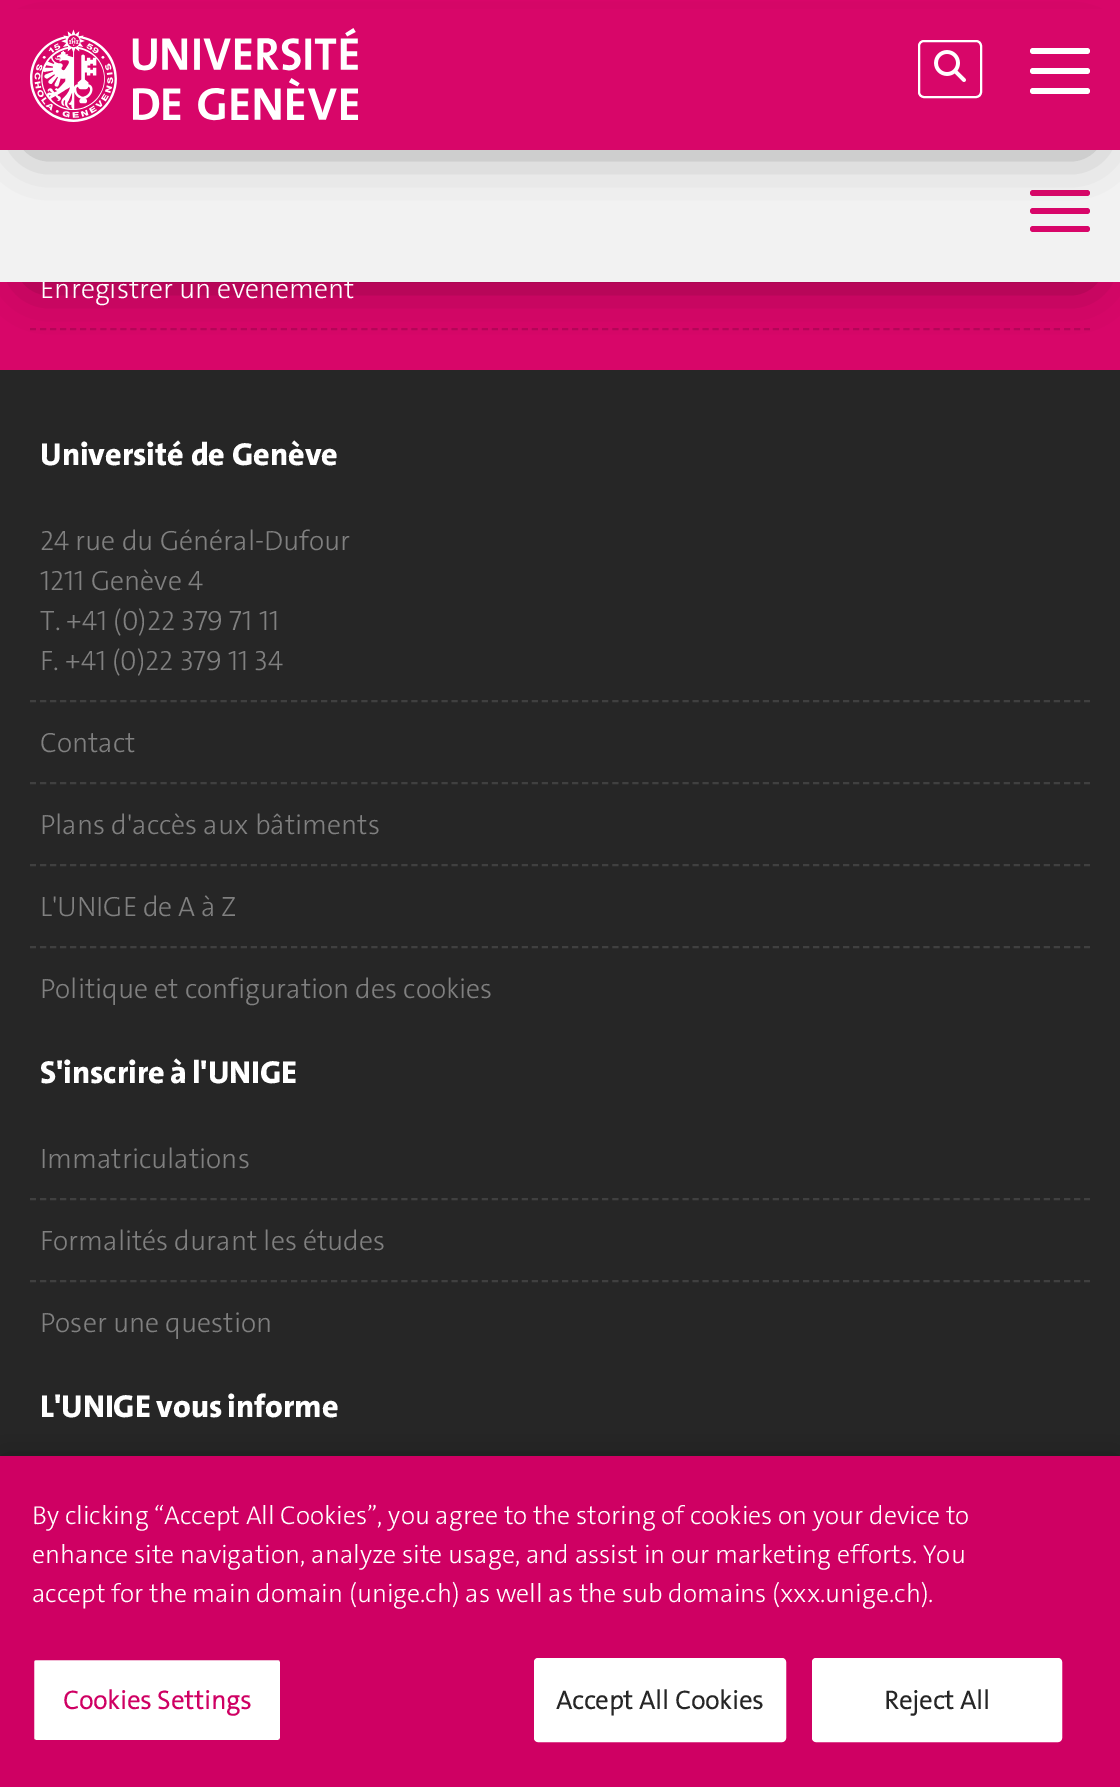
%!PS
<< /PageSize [1120 1787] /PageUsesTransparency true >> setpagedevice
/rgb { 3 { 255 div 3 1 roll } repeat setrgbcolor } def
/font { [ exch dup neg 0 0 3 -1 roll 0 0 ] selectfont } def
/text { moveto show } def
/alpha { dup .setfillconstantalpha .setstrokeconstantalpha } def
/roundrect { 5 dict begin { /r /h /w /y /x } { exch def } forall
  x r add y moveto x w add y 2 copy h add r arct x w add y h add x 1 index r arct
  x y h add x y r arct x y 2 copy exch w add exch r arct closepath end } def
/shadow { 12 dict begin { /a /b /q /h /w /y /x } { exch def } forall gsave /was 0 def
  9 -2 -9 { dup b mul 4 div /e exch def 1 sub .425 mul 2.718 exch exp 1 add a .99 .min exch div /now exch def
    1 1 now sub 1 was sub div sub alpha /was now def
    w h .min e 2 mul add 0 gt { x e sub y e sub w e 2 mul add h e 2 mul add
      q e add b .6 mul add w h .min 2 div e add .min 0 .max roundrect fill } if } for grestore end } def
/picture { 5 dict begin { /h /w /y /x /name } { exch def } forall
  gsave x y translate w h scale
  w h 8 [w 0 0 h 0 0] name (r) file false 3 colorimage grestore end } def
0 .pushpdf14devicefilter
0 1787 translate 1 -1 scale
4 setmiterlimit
216 6 105 rgb
0 0 1120 1787 rectfill
184 5 89 rgb
2 setlinewidth
[6 4.04] 0 setdash
30 329 moveto 1060 0 rlineto stroke
0 0 0 rgb
34 210 1052 66 0 26 0.5 shadow
38 38 38 rgb
0 370 1120 1086 rectfill
64 64 64 rgb
30 701 moveto 1060 0 rlineto stroke
30 783 moveto 1060 0 rlineto stroke
30 865 moveto 1060 0 rlineto stroke
30 947 moveto 1060 0 rlineto stroke
30 1199 moveto 1060 0 rlineto stroke
30 1281 moveto 1060 0 rlineto stroke
0 0 0 rgb
0 1456 1120 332 0 18 0.2 shadow
207 0 99 rgb
0 1456 1120 331 rectfill
255 255 255 rgb
33 1659 248 82 3 roundrect gsave fill grestore
207 0 99 rgb
[] 0 setdash
stroke
255 255 255 rgb
535 1659 250 82 3 roundrect gsave fill grestore
stroke
813 1659 248 82 3 roundrect gsave fill grestore
stroke
/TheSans-Light 28 font
(Enregistrer un événement) 40 298 text
242 242 242 rgb
0 150 1120 132 rectfill
216 6 105 rgb
1030 190 60 6 3 roundrect fill
1030 208 60 6 3 roundrect fill
0 0 0 rgb
34 60 1052 82 0 26 0.5 shadow
216 6 105 rgb
0 9 1120 141 rectfill
255 255 255 rgb
1030 88 60 6 3 roundrect fill
1030 68 60 6 3 roundrect fill
1030 48 60 6 3 roundrect fill
919 41 62 56 5 roundrect stroke
(img_02.rgb) 934 50 32 32 picture
(img_01.rgb) 30 28 328 94 picture
216 6 105 rgb
1030 226 60 6 3 roundrect fill
/TheSans-ExtraBold 32 font
255 255 255 rgb
(Université de Genève) 40 465 text
/TheSans-Light 28 font
128 128 128 rgb
(24 rue du Général-Dufour) 40 550 text
(1211 Genève 4) 40 590 text
(T. +41 \(0\)22 379 71 11) 40 630 text
(F. +41 \(0\)22 379 11 34) 40 670 text
(Contact) 40 752 text
(Plans d'accès aux bâtiments) 40 834 text
40 916 moveto -0.5 0 32 (L'UNIGE de A à Z) widthshow
(Politique et configuration des cookies) 40 998 text
/TheSans-ExtraBold 32 font
255 255 255 rgb
40 1083 moveto -2 0 32 (S'inscrire à l'UNIGE) widthshow
/TheSans-Light 28 font
128 128 128 rgb
(Immatriculations) 40 1168 text
(Formalités durant les études) 40 1250 text
(Poser une question) 40 1332 text
/TheSans-ExtraBold 32 font
255 255 255 rgb
40 1417 moveto -2 0 32 (L'UNIGE vous informe) widthshow
/TheSans-Light 26 font
(By clicking “Accept All Cookies”, you agree to the storing of cookies on your device to) 32 1524 text
(enhance site navigation, analyze site usage, and assist in our marketing efforts.) 32 1563 text
(You) 923 1563 text
(accept for the main domain \(unige.ch\) as well as the sub domains \(xxx.unige.ch\).) 32 1602 text
/TheSans-Bold 26 font
207 0 99 rgb
63 1709 moveto 0.25 0 (Cookies Settings) ashow
38 38 38 rgb
556 1709 moveto 0.25 0 (Accept All Cookies) ashow
884 1709 moveto 0.25 0 (Reject All) ashow
.poppdf14devicefilter showpage
